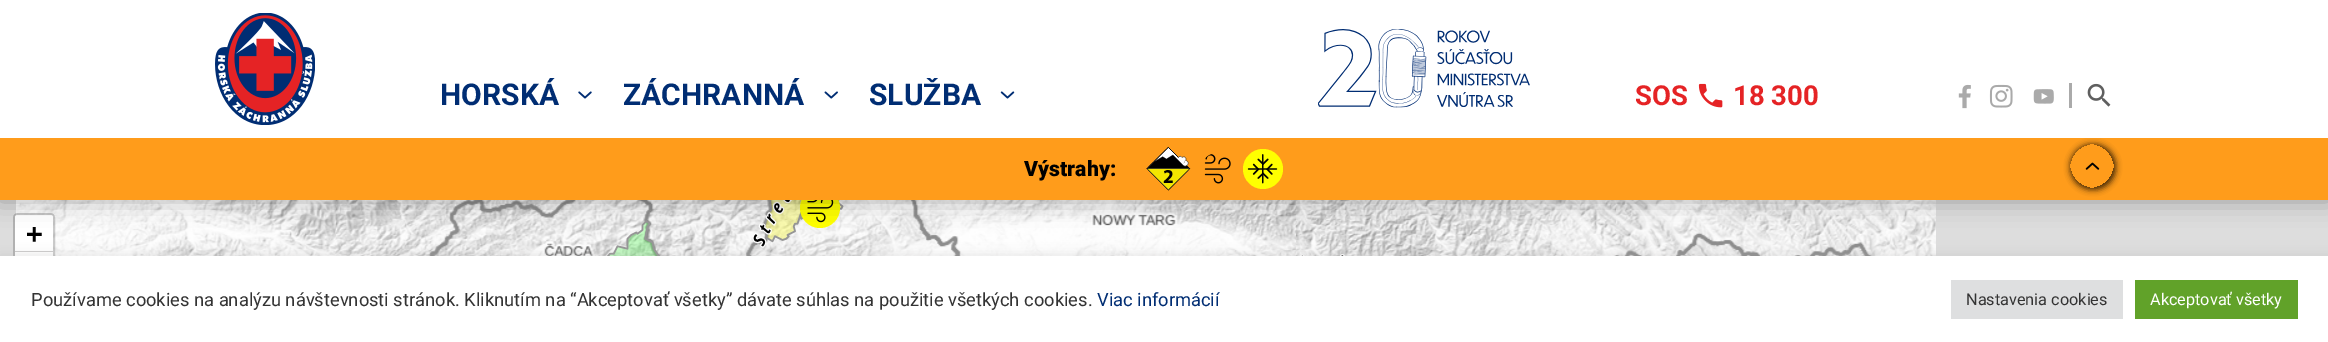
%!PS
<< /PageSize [2328 342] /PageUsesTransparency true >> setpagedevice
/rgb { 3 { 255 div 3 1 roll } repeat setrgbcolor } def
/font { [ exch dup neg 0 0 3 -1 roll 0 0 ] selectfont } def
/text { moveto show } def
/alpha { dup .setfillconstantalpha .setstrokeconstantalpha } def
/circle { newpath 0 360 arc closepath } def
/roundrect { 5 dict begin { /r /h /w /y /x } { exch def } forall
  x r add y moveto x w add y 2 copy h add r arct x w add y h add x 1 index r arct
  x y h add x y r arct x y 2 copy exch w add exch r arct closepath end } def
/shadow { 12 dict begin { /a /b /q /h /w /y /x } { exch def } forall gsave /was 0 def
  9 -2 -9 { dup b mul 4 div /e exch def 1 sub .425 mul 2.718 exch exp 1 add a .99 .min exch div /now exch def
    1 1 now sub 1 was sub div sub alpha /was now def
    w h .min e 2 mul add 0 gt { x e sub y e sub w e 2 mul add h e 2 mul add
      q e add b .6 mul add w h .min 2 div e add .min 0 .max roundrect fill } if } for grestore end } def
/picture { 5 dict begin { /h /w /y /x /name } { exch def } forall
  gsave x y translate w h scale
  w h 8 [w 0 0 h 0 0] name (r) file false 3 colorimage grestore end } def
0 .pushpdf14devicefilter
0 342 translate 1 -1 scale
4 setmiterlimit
221 221 221 rgb
0 0 2328 342 rectfill
(img_18.rgb) 656 200 320 56 picture
(img_17.rgb) 336 200 320 56 picture
(img_22.rgb) 607 200 237 56 picture
(img_19.rgb) 976 200 320 56 picture
(img_20.rgb) 1296 200 320 56 picture
(img_23.rgb) 752 200 593 56 picture
255 255 0 rgb
820 208 20 circle fill
(img_15.rgb) 807 200 27 23 picture
(img_16.rgb) 16 200 320 56 picture
(img_21.rgb) 1616 200 320 56 picture
0.2 alpha
0 0 0 rgb
3 setlinewidth
14.5 214.5 39 77 3.5 roundrect stroke
1 alpha
255 255 255 rgb
17.5 215 moveto 33 0 rlineto 1.5 0 2.5 1 2.5 2.5 rcurveto 0 35.5 rlineto -38 0 rlineto 0 -35.5 rlineto 0 -1.5 1 -2.5 2.5 -2.5 rcurveto closepath fill
0 0 0 rgb
-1 136 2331 65 0 12 0.3 shadow
255 156 27 rgb
0 138 2328 62 rectfill
gsave
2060 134 moveto 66 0 rlineto 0 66 rlineto -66 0 rlineto closepath 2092 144 moveto 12 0 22 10 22 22 rcurveto 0 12 -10 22 -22 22 rcurveto -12 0 -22 -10 -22 -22 rcurveto 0 -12 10 -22 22 -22 rcurveto closepath eoclip newpath
0 0 0 rgb
2070 144 46 46 23 3 0.7 shadow
grestore
255 255 255 rgb
0 0 2328 138 rectfill
(img_01.rgb) 215 13 100 112 picture
(img_02.rgb) 578 91 14 8 picture
(img_03.rgb) 824 91 14 8 picture
(img_04.rgb) 1000 91 15 8 picture
(img_05.rgb) 1318 29 212 79 picture
(img_06.rgb) 1698 83 25 25 picture
(img_07.rgb) 1958 84 13 25 picture
(img_08.rgb) 1989 84 24 24 picture
(img_09.rgb) 2033 89 21 15 picture
170 170 170 rgb
2069 83 3 25 rectfill
(img_10.rgb) 2087 83 24 24 picture
(img_11.rgb) 1146 146 45 45 picture
(img_12.rgb) 1204 154 27 30 picture
255 255 0 rgb
1263 169 20 circle fill
(img_13.rgb) 1247 154 31 30 picture
(img_14.rgb) 2085 162 15 8 picture
204 204 204 rgb
15 251 38 1 rectfill
255 255 255 rgb
15 253 38 3 rectfill
172 171 171 rgb
0 255 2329 86 0 6 0.3 shadow
255 255 255 rgb
0 256 2328 86 rectfill
222 223 224 rgb
1951 280 172 39 rectfill
97 162 41 rgb
2135 280 163 39 rectfill
/Roboto-Bold 30 font
0 45 115 rgb
(HORSKÁ) 440 105 text
(ZÁCHRANNÁ) 623 105 text
(SLUŽBA) 869 105 text
/Roboto-Bold 27.5 font
229 35 37 rgb
(SOS) 1635 105 text
(18 300) 1733 105 text
/Roboto-Black 21.25 font
0 0 0 rgb
(Výstrahy:) 1024 176 text
/DejaVuSansMono-Bold 27.5 font
(+) 26 243 text
/Roboto-Regular 18.33 font
51 51 51 rgb
(Používame cookies na analýzu návštevnosti stránok. Kliknutím na “Akceptovať všetky” dávate súhlas na použitie všetkých cookies.) 31 306 text
0 45 115 rgb
(Viac informácií) 1097 306 text
/Roboto-Regular 16.25 font
51 51 51 rgb
(Nastavenia cookies) 1966 305 text
255 255 255 rgb
(Akceptovať všetky) 2150 305 text
.poppdf14devicefilter showpage
